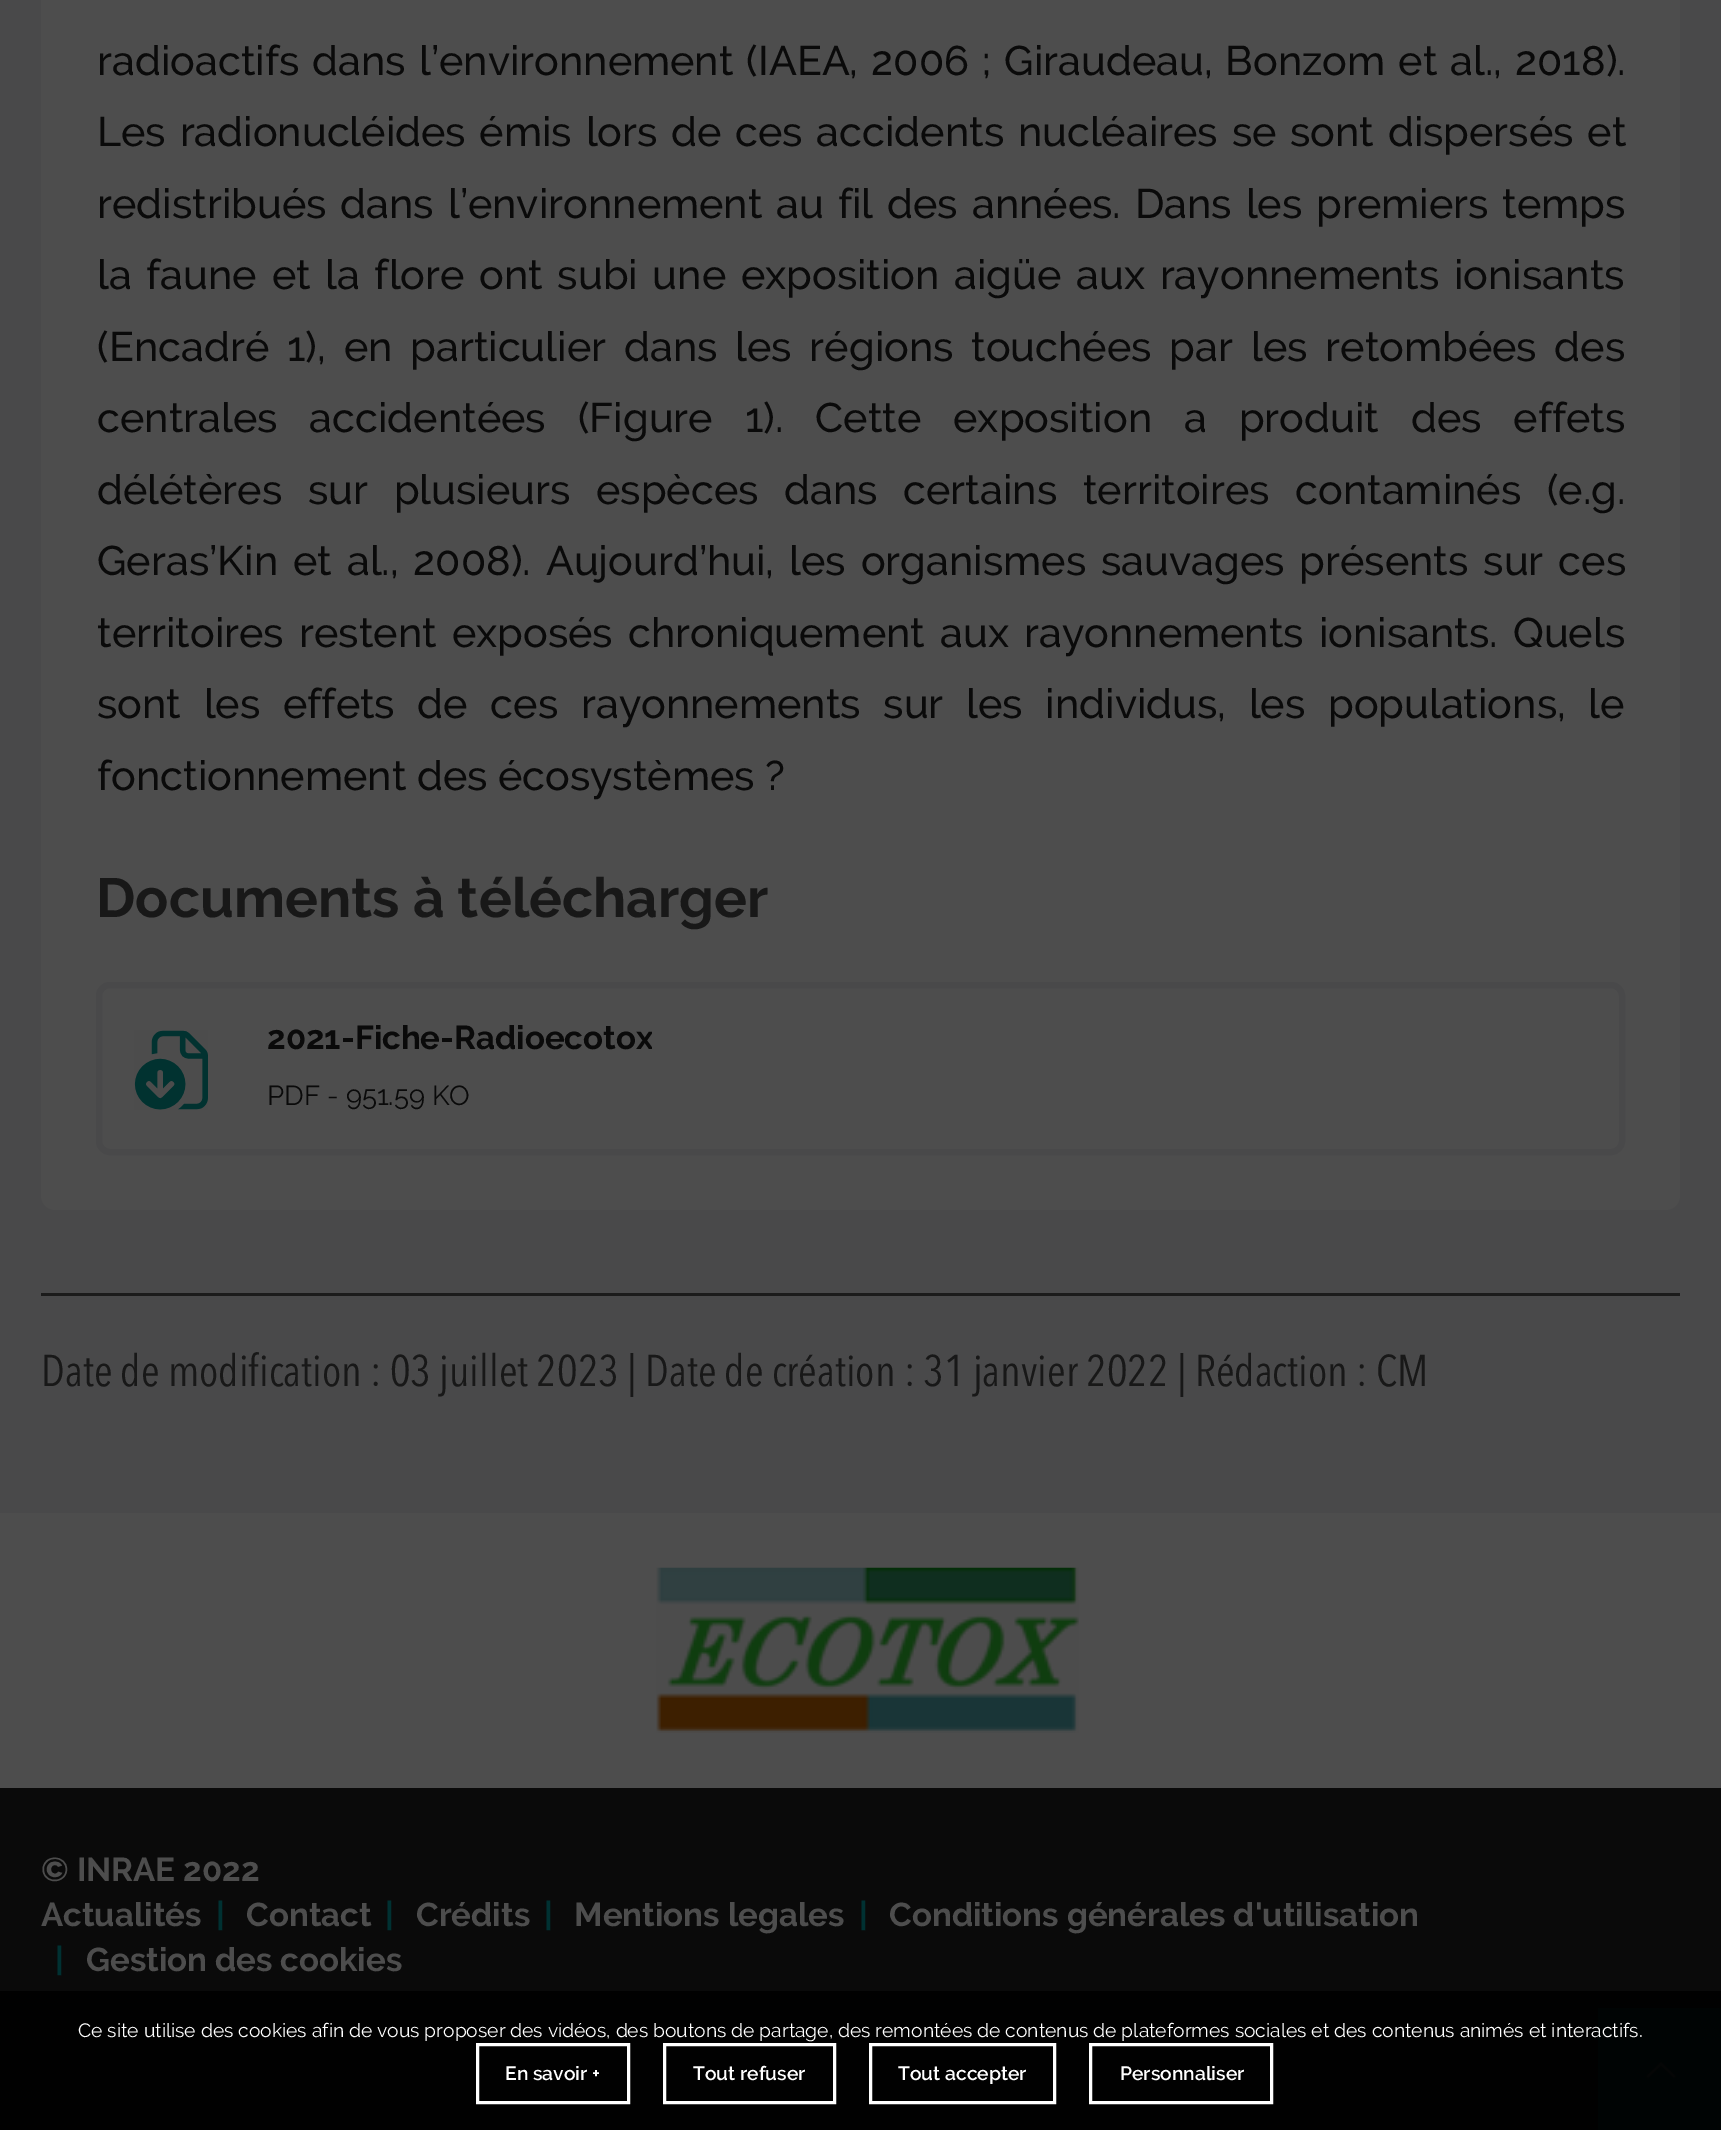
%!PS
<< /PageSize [1721 2130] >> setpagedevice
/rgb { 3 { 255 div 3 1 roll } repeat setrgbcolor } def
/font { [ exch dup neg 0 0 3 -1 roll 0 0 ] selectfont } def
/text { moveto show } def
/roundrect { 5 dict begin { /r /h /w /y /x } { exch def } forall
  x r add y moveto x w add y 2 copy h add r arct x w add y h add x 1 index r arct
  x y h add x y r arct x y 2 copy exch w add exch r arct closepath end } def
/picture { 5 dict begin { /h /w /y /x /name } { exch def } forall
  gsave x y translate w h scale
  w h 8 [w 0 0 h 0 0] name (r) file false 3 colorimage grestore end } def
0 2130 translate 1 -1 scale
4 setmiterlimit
77 77 77 rgb
0 0 1721 2130 rectfill
73 73 74 rgb
0 0 1721 1513 rectfill
77 77 77 rgb
41 -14 1639 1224 14 roundrect fill
73 73 74 rgb
6 setlinewidth
99 985 1523 167 11 roundrect stroke
(img_01.rgb) 134 1030 74 80 picture
27 27 27 rgb
41 1293 1639 3 rectfill
(img_02.rgb) 656 1567 423 166 picture
10 10 10 rgb
0 1788 1721 203 rectfill
1 1 1 rgb
0 1991 1721 139 rectfill
0 4 4 rgb
1598 2008 123 122 rectfill
(img_03.rgb) 1646 2062 30 17 picture
255 255 255 rgb
3 setlinewidth
477.5 2044.5 151 58 rectstroke
664.5 2044.5 170 58 rectstroke
870.5 2044.5 184 58 rectstroke
1090.5 2044.5 181 58 rectstroke
/Raleway-Medium 41.25 font
10 10 10 rgb
97 75 moveto 2.6 0 32 (radioactifs dans l’environnement \(IAEA, 2006 ; Giraudeau, Bonzom et al., 2018\).) widthshow
97 146 moveto 3.25 0 32 (Les radionucléides émis lors de ces accidents nucléaires se sont dispersés et) widthshow
97 218 moveto 3.5 0 32 (redistribués dans l’environnement au fil des années. Dans les premiers temps) widthshow
97 289 moveto 4.25 0 32 (la faune et la flore ont subi une exposition aigüe aux rayonnements ionisants) widthshow
97 361 moveto 7.4 0 32 (\(Encadré 1\), en particulier dans les régions touchées par les retombées des) widthshow
97 432 moveto 21.5 0 32 (centrales accidentées \(Figure 1\). Cette exposition a produit des effets) widthshow
97 504 moveto 15.25 0 32 (délétères sur plusieurs espèces dans certains territoires contaminés \(e.g.) widthshow
97 575 moveto 4.5 0 32 (Geras’Kin et al., 2008\). Aujourd’hui, les organismes sauvages présents sur ces) widthshow
97 647 moveto 4.75 0 32 (territoires restent exposés chroniquement aux rayonnements ionisants. Quels) widthshow
97 718 moveto 12.25 0 32 (sont les effets de ces rayonnements sur les individus, les populations, le) widthshow
(fonctionnement des écosystèmes ?) 97 790 text
/Raleway-Bold 55 font
24 24 24 rgb
(Documents à télécharger) 96 917 text
gsave
267 1015 385 47 rectclip
/Raleway-Bold 33 font
10 10 10 rgb
(2021-Fiche-Radioecotox) 267 1049 text
grestore
/Raleway-Regular 27.5 font
10 10 10 rgb
(PDF - 951.59 KO) 267 1105 text
/AvenirNext-Regular 44 font
24 24 24 rgb
(Date de modification : 03 juillet 2023 | Date de création : 31 janvier 2022 | Rédaction : CM) 41 1386 text
/Raleway-Bold 33 font
77 77 77 rgb
(© INRAE 2022) 41 1881 text
(Actualités) 41 1926 text
0 49 50 rgb
(|) 216 1926 text
77 77 77 rgb
(Contact) 246 1926 text
0 49 50 rgb
(|) 385 1926 text
77 77 77 rgb
(Crédits) 416 1926 text
0 49 50 rgb
(|) 544 1926 text
77 77 77 rgb
(Mentions legales) 574 1926 text
0 49 50 rgb
(|) 859 1926 text
77 77 77 rgb
(Conditions générales d'utilisation) 889 1926 text
0 49 50 rgb
(|) 55 1971 text
77 77 77 rgb
(Gestion des cookies) 86 1971 text
/Raleway-Regular 19.25 font
255 255 255 rgb
(Ce site utilise des cookies afin de vous proposer des vidéos, des boutons de partage, des remontées de contenus de plateformes sociales et des contenus animés et interactifs.) 78 2037 text
/Raleway-SemiBold 19.25 font
(En savoir +) 505 2080 text
(Tout refuser) 693 2080 text
(Tout accepter) 898 2080 text
(Personnaliser) 1120 2080 text
showpage
